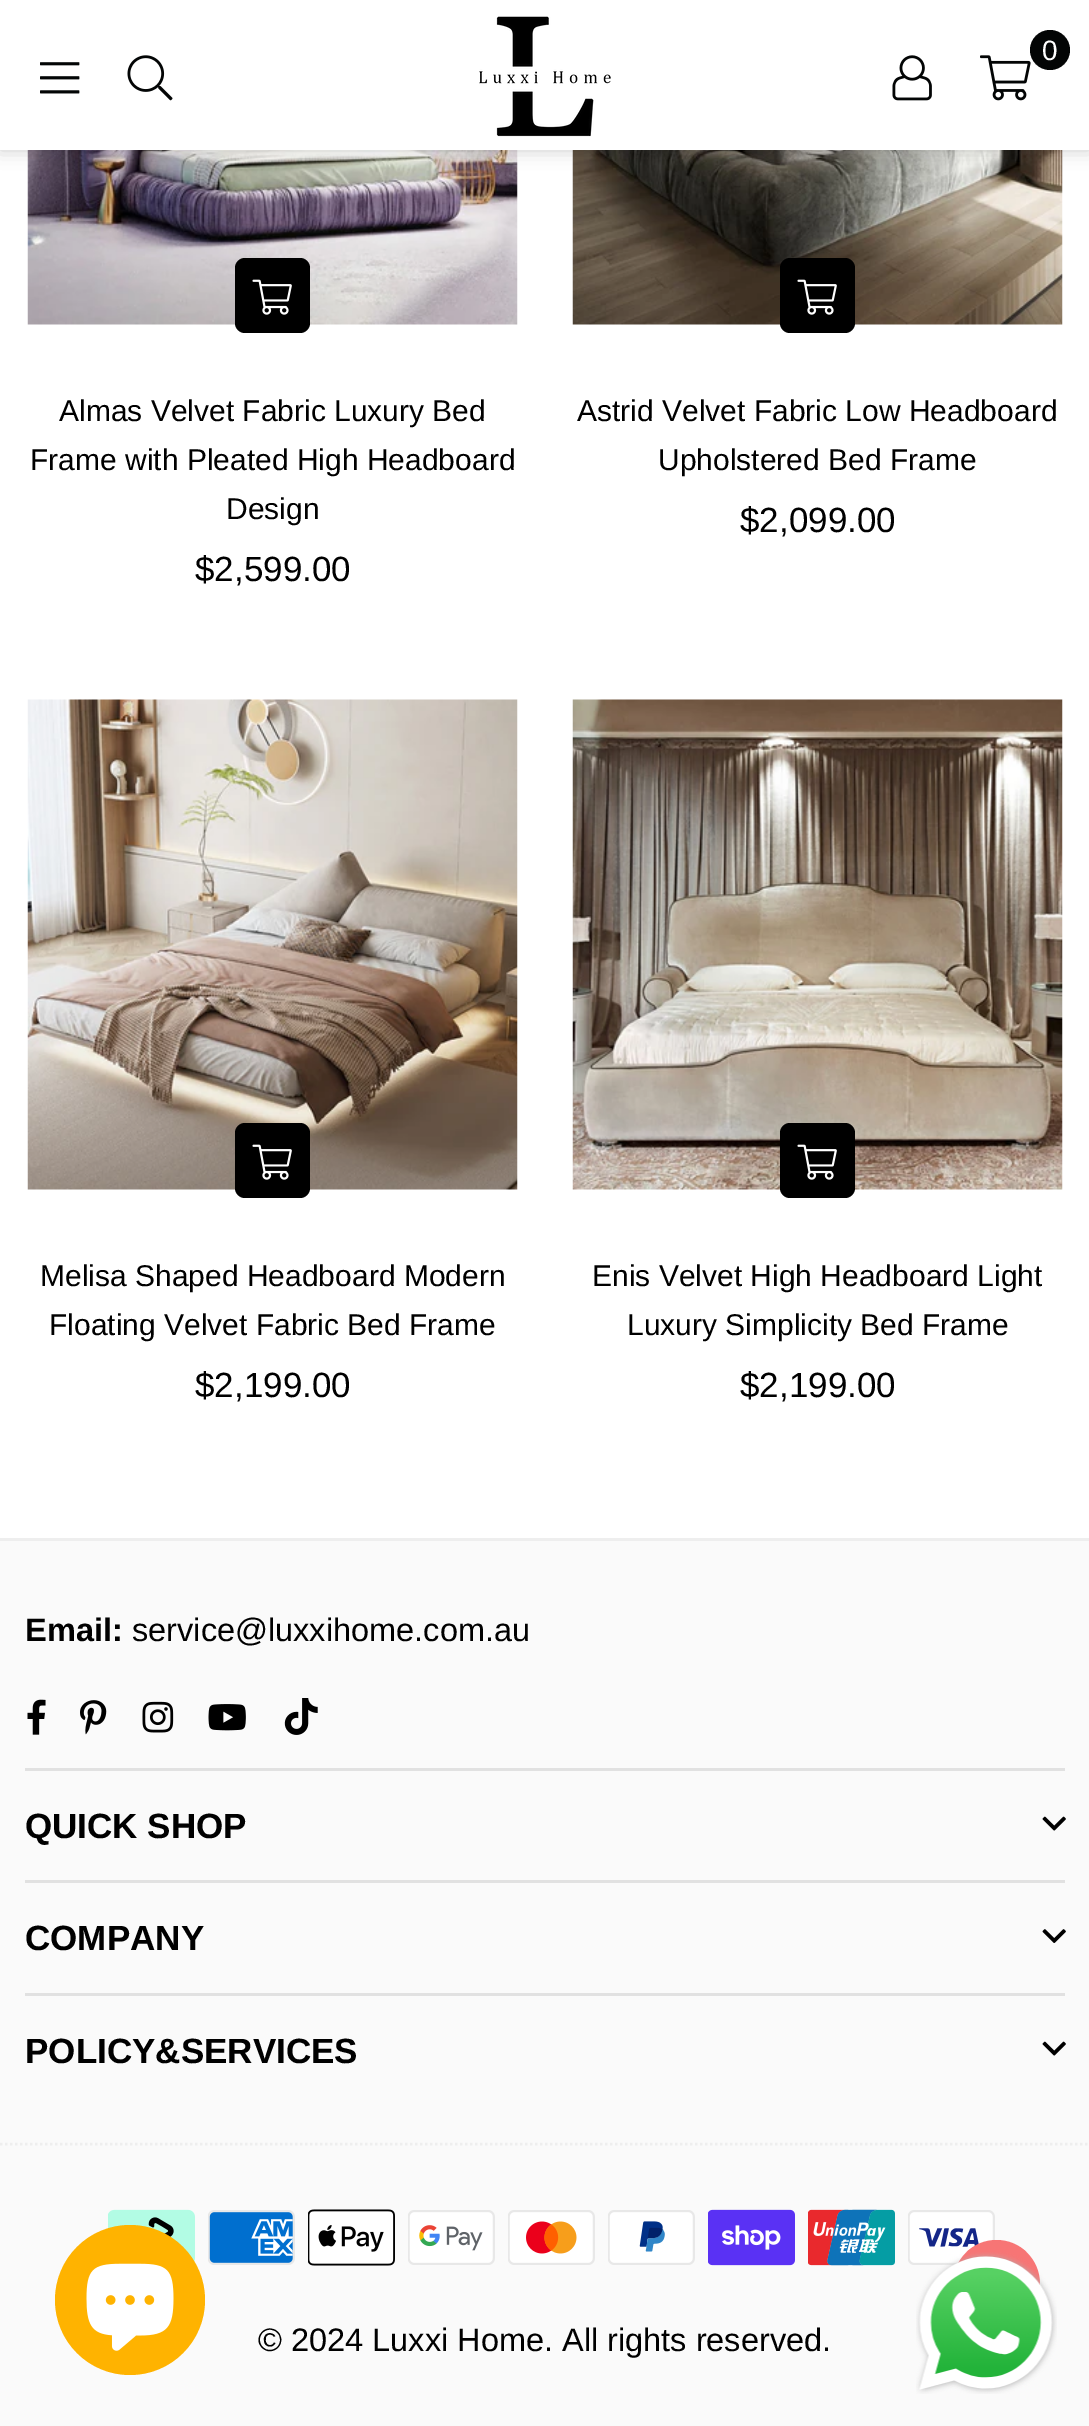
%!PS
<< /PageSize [1089 2426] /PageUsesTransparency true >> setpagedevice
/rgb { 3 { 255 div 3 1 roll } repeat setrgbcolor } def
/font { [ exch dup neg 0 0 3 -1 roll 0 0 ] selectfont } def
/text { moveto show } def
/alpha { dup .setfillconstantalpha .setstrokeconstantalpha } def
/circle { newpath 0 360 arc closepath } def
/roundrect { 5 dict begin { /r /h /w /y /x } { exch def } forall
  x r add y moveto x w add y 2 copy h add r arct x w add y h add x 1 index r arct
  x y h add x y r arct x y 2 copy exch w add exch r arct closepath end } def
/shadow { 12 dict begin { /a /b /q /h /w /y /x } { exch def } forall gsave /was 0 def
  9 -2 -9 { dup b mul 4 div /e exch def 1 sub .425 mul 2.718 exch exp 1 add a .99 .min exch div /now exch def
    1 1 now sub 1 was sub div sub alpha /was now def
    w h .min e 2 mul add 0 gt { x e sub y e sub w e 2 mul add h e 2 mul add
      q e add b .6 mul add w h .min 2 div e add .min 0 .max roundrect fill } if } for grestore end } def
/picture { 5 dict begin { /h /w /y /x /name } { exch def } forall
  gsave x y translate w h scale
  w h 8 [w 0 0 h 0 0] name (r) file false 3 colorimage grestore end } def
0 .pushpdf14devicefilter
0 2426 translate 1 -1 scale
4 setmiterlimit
255 255 255 rgb
0 0 1089 2426 rectfill
(img_06.rgb) 27 150 491 175 picture
(img_08.rgb) 572 150 491 175 picture
0 0 0 rgb
0 0 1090 150 0 9 0.2 shadow
255 255 255 rgb
0 0 1089 150 rectfill
(img_01.rgb) 479 16 132 121 picture
(img_02.rgb) 980 55 51 46 picture
3 5 5 rgb
1050 50 20 circle fill
(img_03.rgb) 892 55 40 46 picture
(img_04.rgb) 40 62 40 32 picture
(img_05.rgb) 127 55 46 46 picture
0 0 0 rgb
235 258 75 75 10 roundrect fill
(img_07.rgb) 252 279 40 36 picture
780 258 75 75 10 roundrect fill
(img_07.rgb) 797 279 40 36 picture
(img_09.rgb) 27 699 491 491 picture
235 1123 75 75 10 roundrect fill
(img_07.rgb) 252 1144 40 36 picture
(img_10.rgb) 572 699 491 491 picture
780 1123 75 75 10 roundrect fill
(img_07.rgb) 797 1144 40 36 picture
250 250 250 rgb
0 1541 1089 885 rectfill
238 238 238 rgb
0 1538 1089 3 rectfill
(img_11.rgb) 27 1699 19 36 picture
(img_12.rgb) 80 1700 27 35 picture
(img_13.rgb) 142 1701 32 32 picture
(img_14.rgb) 208 1704 38 27 picture
(img_15.rgb) 284 1698 34 37 picture
225 225 225 rgb
25 1768 1040 3 rectfill
(img_16.rgb) 1042 1816 24 15 picture
25 1880 1040 3 rectfill
(img_17.rgb) 1042 1929 24 14 picture
25 1993 1040 3 rectfill
(img_16.rgb) 1042 2041 24 15 picture
238 238 238 rgb
2.5 setlinewidth
[2.5 2.5] 0 setdash
0 2144 moveto 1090 0 rlineto stroke
(img_18.rgb) 108 2209 87 53 picture
(img_19.rgb) 208 2210 87 55 picture
(img_20.rgb) 308 2209 87 57 picture
(img_21.rgb) 408 2210 87 55 picture
(img_22.rgb) 508 2210 87 55 picture
(img_23.rgb) 608 2210 87 55 picture
(img_24.rgb) 708 2209 87 57 picture
(img_25.rgb) 808 2209 87 57 picture
(img_26.rgb) 908 2210 87 55 picture
255 179 0 rgb
130 2300 75 circle fill
(img_27.rgb) 86 2263 88 88 picture
247 117 117 rgb
953 2240 87 88 43.5 roundrect fill
(img_28.rgb) 916 2252 141 142 picture
/LiberationSans-Regular 28 font
255 255 255 rgb
(0) 1042 60 text
/LiberationSans-Regular 30 font
0 0 0 rgb
(Almas Velvet Fabric Luxury Bed) 59 421 text
(Frame with Pleated High Headboard) 30 470 text
(Design) 226 519 text
/LiberationSans-Regular 35 font
($2,599.00) 195 581 text
/LiberationSans-Regular 30 font
(Astrid Velvet Fabric Low Headboard) 577 421 text
(Upholstered Bed Frame) 658 470 text
/LiberationSans-Regular 35 font
($2,099.00) 740 532 text
/LiberationSans-Regular 30 font
(Melisa Shaped Headboard Modern) 40 1286 text
(Floating Velvet Fabric Bed Frame) 49 1335 text
/LiberationSans-Regular 35 font
($2,199.00) 195 1397 text
/LiberationSans-Regular 30 font
(Enis Velvet High Headboard Light) 592 1286 text
(Luxury Simplicity Bed Frame) 627 1335 text
/LiberationSans-Regular 35 font
($2,199.00) 740 1397 text
/LiberationSans-Bold 32.5 font
(Email:) 25 1641 text
/LiberationSans-Regular 32.5 font
(service@luxxihome.com.au) 132 1641 text
/LiberationSans-Bold 35 font
(QUICK SHOP) 25 1838 text
(COMPANY) 25 1950 text
(POLICY&SERVICES) 25 2063 text
/LiberationSans-Regular 32.5 font
(© 2024 Luxxi Home. All rights reserved.) 258 2351 text
.poppdf14devicefilter showpage
